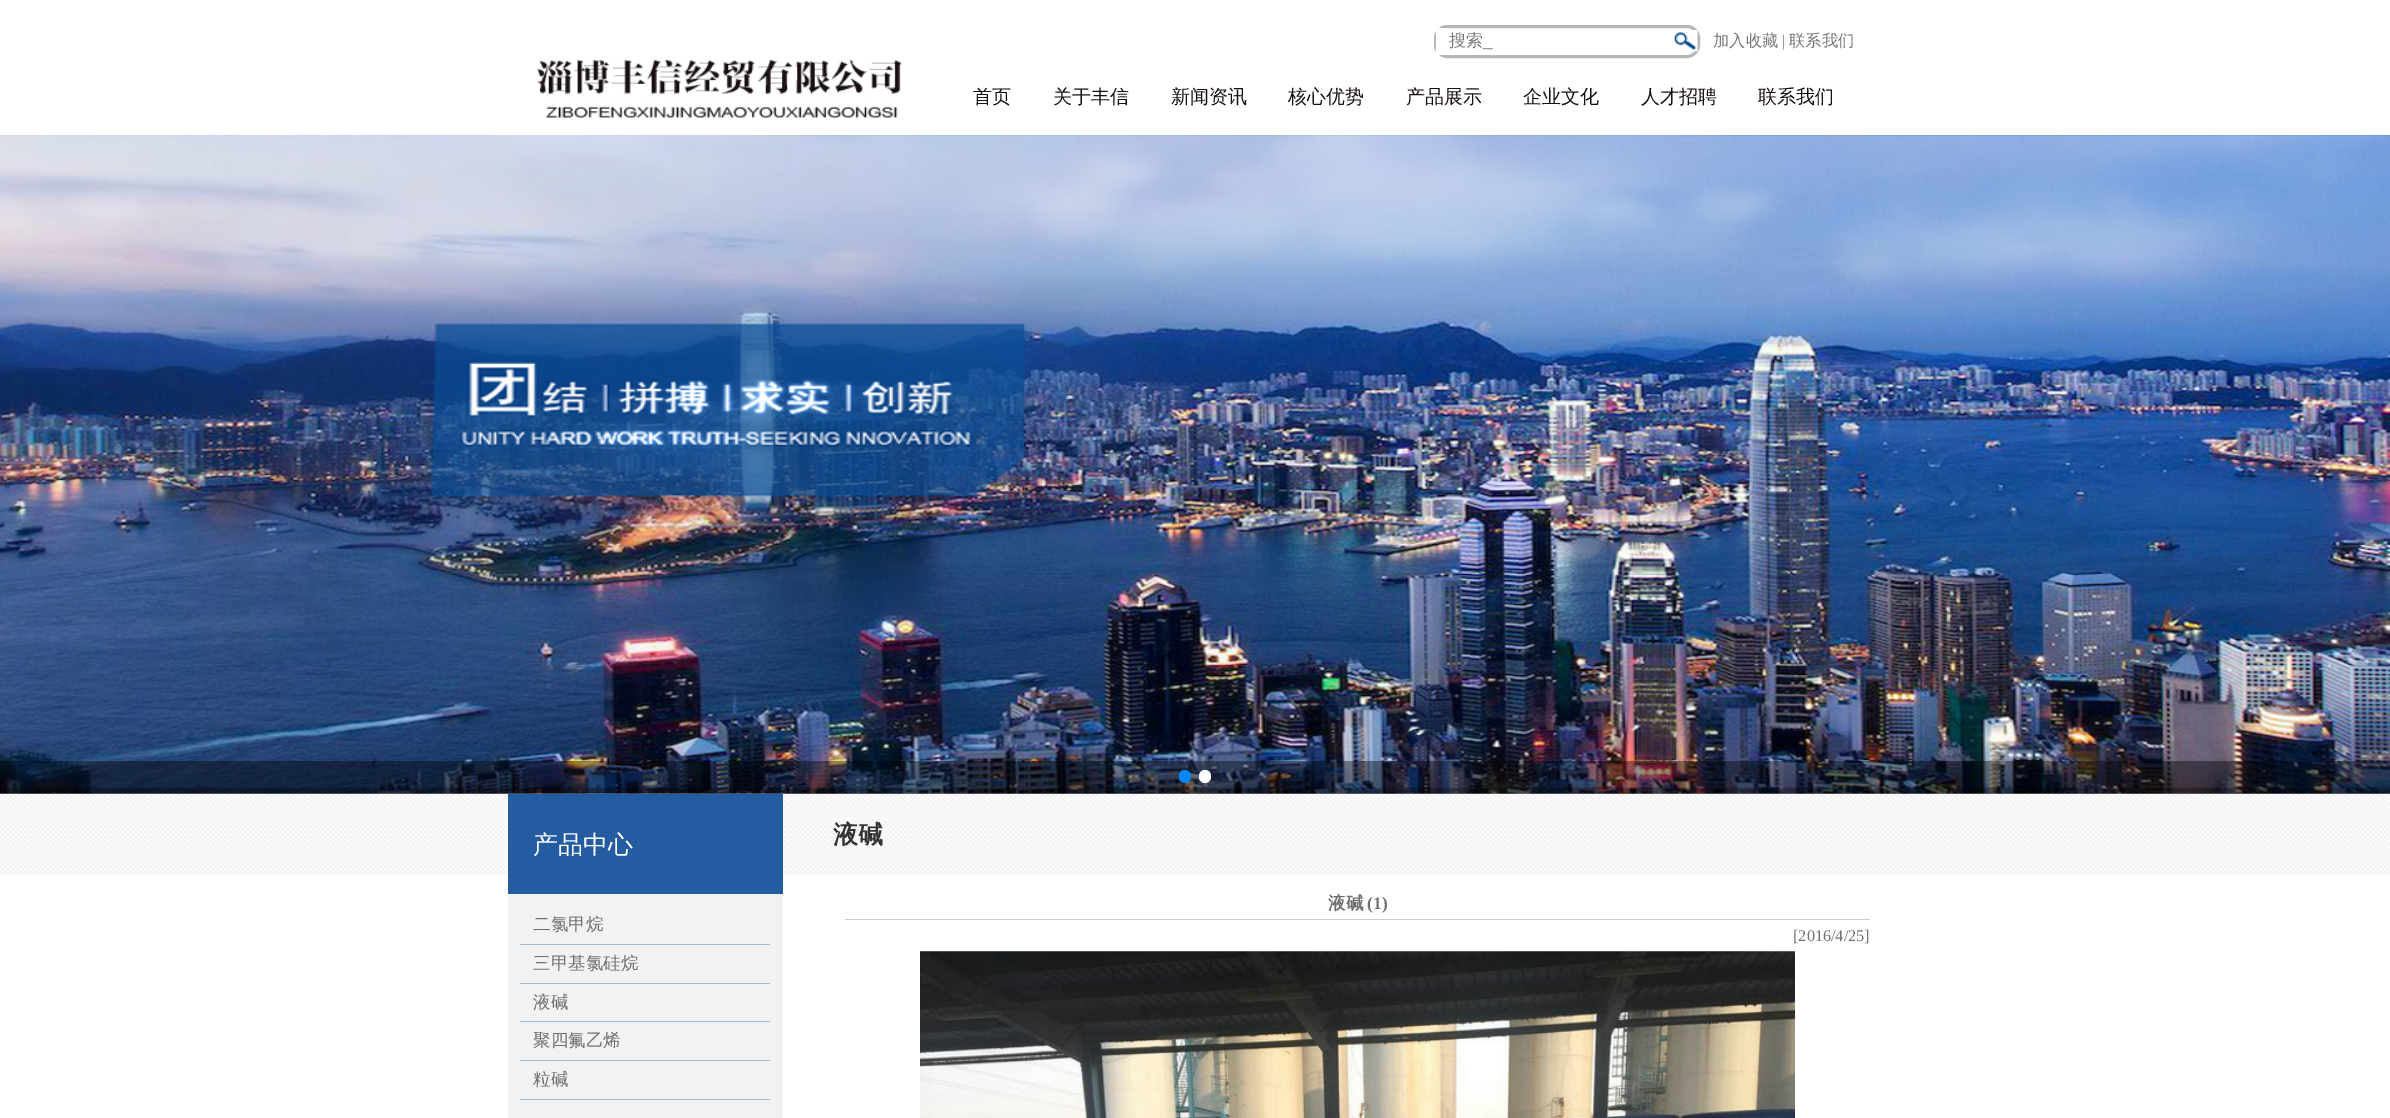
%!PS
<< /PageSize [2390 1118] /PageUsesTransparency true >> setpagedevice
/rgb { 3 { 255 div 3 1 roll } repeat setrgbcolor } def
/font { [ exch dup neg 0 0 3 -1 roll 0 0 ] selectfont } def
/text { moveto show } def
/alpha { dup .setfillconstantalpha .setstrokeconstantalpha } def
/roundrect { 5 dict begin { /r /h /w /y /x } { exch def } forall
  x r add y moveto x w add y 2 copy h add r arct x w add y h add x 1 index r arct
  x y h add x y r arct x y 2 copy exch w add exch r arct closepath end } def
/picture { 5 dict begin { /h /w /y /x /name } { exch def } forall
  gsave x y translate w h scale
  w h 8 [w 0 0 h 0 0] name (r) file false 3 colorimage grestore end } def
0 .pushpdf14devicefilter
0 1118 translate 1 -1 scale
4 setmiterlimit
255 255 255 rgb
0 0 2390 1118 rectfill
(img_01.rgb) 537 59 365 59 picture
183 183 183 rgb
3 setlinewidth
1435.5 26.5 263 30 11.5 roundrect stroke
255 255 255 rgb
1436 28 11 27 rectfill
(img_02.rgb) 1673 30 25 22 picture
(img_04.rgb) 0 793 2390 82 picture
(img_03.rgb) 0 135 2390 659 picture
0.4 alpha
0 0 0 rgb
0 761 2390 33 rectfill
1 alpha
0 135 255 rgb
1179 770 12 13 6 roundrect fill
255 255 255 rgb
1199 770 12 13 6 roundrect fill
242 242 242 rgb
508 894 275 224 rectfill
35 92 161 rgb
508 794 275 100 rectfill
165 186 212 rgb
520 944 250 1 rectfill
520 983 250 1 rectfill
520 1021 250 1 rectfill
520 1060 250 1 rectfill
520 1099 250 1 rectfill
204 204 204 rgb
845 919 1025 1 rectfill
(img_05.rgb) 920 951 875 167 picture
/WenQuanYiZenHei-Medium 17 font
119 119 119 rgb
(搜索) 1449 46 text
/LiberationSans-Regular 17 font
(_) 1483 46 text
/WenQuanYiZenHei-Medium 16.25 font
(加入收藏) 1713 46 text
/LiberationSerif-Regular 16.25 font
(|) 1782 46 text
/WenQuanYiZenHei-Medium 16.25 font
(联系我们) 1789 46 text
/WenQuanYiZenHei-Medium 19 font
24 15 16 rgb
(首页) 973 103 text
(关于丰信) 1053 103 text
(新闻资讯) 1171 103 text
(核心优势) 1288 103 text
(产品展示) 1406 103 text
(企业文化) 1523 103 text
(人才招聘) 1641 103 text
(联系我们) 1758 103 text
/WenQuanYiZenHei-Medium 25 font
255 255 255 rgb
(产品中心) 533 853 text
/WenQuanYiZenHei-Medium 17.5 font
112 112 112 rgb
(二氯甲烷) 533 930 text
(三甲基氯硅烷) 533 969 text
(液碱) 533 1008 text
(聚四氟乙烯) 533 1046 text
(粒碱) 533 1085 text
/WenQuanYiZenHei-Bold 25 font
51 51 51 rgb
(液碱) 833 843 text
/WenQuanYiZenHei-Bold 17.5 font
112 112 112 rgb
(液碱) 1328 909 text
/LiberationSerif-Bold 17.5 font
(\(1\)) 1367 909 text
/LiberationSerif-Regular 16.25 font
([2016/4/25]) 1793 941 text
.poppdf14devicefilter showpage
